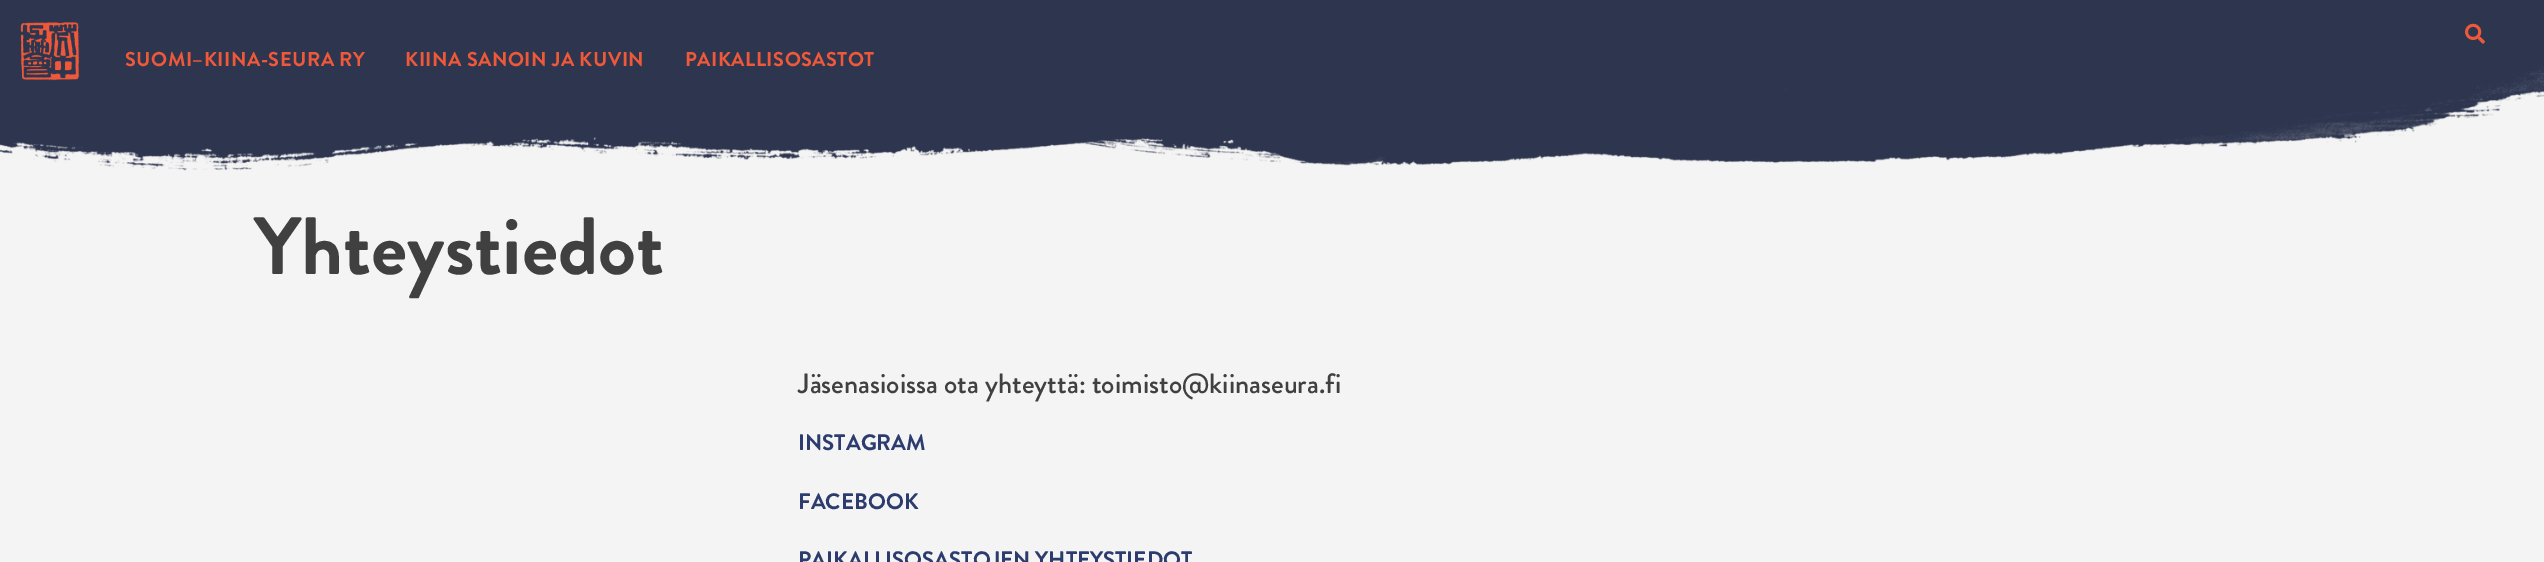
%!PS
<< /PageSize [2544 562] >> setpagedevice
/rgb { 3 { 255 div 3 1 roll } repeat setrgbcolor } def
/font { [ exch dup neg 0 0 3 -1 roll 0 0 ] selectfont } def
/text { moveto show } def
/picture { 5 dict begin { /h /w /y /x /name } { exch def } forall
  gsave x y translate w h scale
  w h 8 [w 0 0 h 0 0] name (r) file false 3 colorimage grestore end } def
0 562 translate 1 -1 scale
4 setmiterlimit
244 244 244 rgb
0 0 2544 562 rectfill
(img_01.rgb) 0 0 2544 171 picture
(img_02.rgb) 20 22 60 59 picture
(img_03.rgb) 2465 23 20 21 picture
/BrandonGrotesque-Bold 20 font
239 89 57 rgb
125 66 moveto 0.5 0 (SUOMI–KIINA-SEURA RY) ashow
405 66 moveto 0.5 0 (KIINA SANOIN JA KUVIN) ashow
685 66 moveto 0.5 0 (PAIKALLISOSASTOT) ashow
/BrandonGrotesque-Bold 81 font
64 64 64 rgb
(Yhteystiedot) 254 274 text
/BrandonGrotesque-Medium 28 font
(Jäsenasioissa ota yhteyttä: toimisto@kiinaseura.fi) 798 393 text
/BrandonGrotesque-Bold 22.4 font
44 60 110 rgb
(INSTAGRAM) 798 450 text
(FACEBOOK) 798 509 text
(PAIKALLISOSASTOJEN YHTEYSTIEDOT) 798 567 text
showpage
